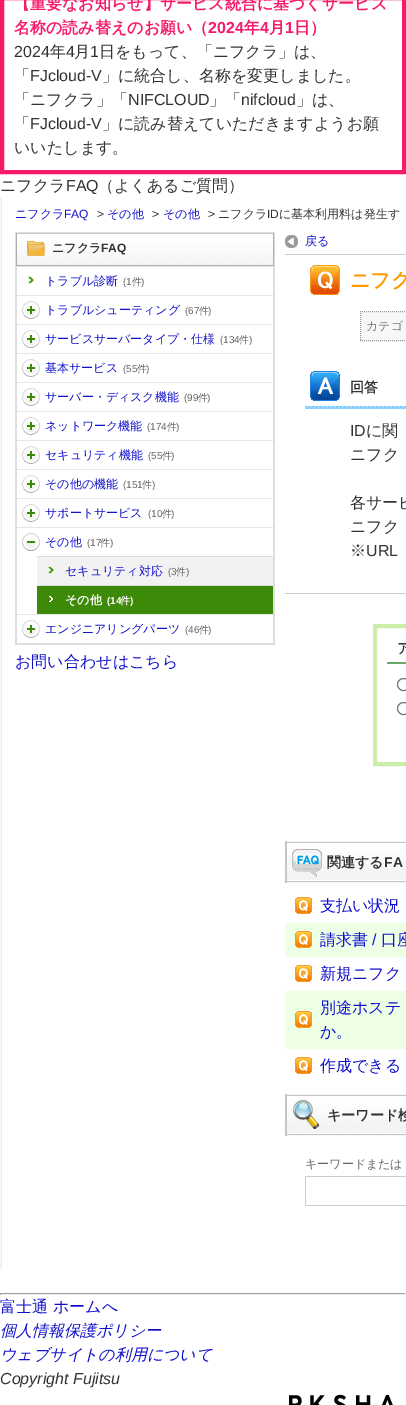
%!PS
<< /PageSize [406 1405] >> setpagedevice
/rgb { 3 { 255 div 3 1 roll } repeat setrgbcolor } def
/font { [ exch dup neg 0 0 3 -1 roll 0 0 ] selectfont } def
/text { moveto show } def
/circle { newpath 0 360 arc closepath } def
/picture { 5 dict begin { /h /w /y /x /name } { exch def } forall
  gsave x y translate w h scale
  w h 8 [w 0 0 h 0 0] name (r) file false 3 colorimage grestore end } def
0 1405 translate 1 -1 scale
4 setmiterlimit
255 255 255 rgb
0 0 406 1405 rectfill
247 25 106 rgb
4 setlinewidth
2 -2 402 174 rectstroke
(img_01.rgb) 0 198 2 1071 picture
222 222 222 rgb
15 232 260 413 rectfill
(img_02.rgb) 17 233 256 32 picture
173 173 173 rgb
273 233 1 33 rectfill
16 265 258 1 rectfill
16 233 1 33 rectfill
(img_03.rgb) 27 241 18 15 picture
255 255 255 rgb
17 267 256 376 rectfill
230 230 230 rgb
17 266 256 1 rectfill
(img_04.rgb) 28 276 6 8 picture
17 295 256 1 rectfill
(img_05.rgb) 22 301 18 18 picture
17 324 256 1 rectfill
(img_05.rgb) 22 330 18 18 picture
17 353 256 1 rectfill
(img_05.rgb) 22 359 18 18 picture
17 382 256 1 rectfill
(img_05.rgb) 22 388 18 18 picture
17 411 256 1 rectfill
(img_05.rgb) 22 417 18 18 picture
17 440 256 1 rectfill
(img_05.rgb) 22 446 18 18 picture
17 469 256 1 rectfill
(img_05.rgb) 22 475 18 18 picture
17 498 256 1 rectfill
(img_05.rgb) 22 504 18 18 picture
17 527 256 1 rectfill
(img_06.rgb) 22 533 18 18 picture
242 242 242 rgb
37 557 236 28 rectfill
220 220 220 rgb
37 556 236 1 rectfill
(img_07.rgb) 48 566 6 8 picture
37 585 236 1 rectfill
61 137 8 rgb
37 586 236 28 rectfill
(img_08.rgb) 49 596 4 6 picture
230 230 230 rgb
17 614 256 1 rectfill
(img_05.rgb) 22 620 18 18 picture
204 204 204 rgb
285 254 121 1 rectfill
(img_09.rgb) 285 235 13 13 picture
(img_10.rgb) 310 265 30 30 picture
247 247 247 rgb
360 311 46 30 rectfill
153 153 153 rgb
1 setlinewidth
[1 1] 0 setdash
360 311.5 moveto 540 0 rlineto 360 340.5 moveto 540 0 rlineto 360.5 311 moveto 0 30 rlineto stroke
(img_11.rgb) 305 406 101 3 picture
(img_12.rgb) 310 371 30 30 picture
204 204 204 rgb
285 593 121 1 rectfill
204 238 170 rgb
4 setlinewidth
[] 0 setdash
375 626 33 138 rectstroke
102 170 102 rgb
387 662 19 2 rectfill
118 118 118 rgb
1 setlinewidth
403.5 684.5 6 circle stroke
403.5 708.5 6 circle stroke
196 197 198 rgb
285 841 2 42 rectfill
(img_13.rgb) 287 841 119 42 picture
(img_14.rgb) 292 849 30 28 picture
(img_15.rgb) 295 897 17 17 picture
237 255 229 rgb
285 923 121 34 rectfill
(img_16.rgb) 295 931 17 17 picture
(img_15.rgb) 295 965 17 17 picture
285 991 121 58 rectfill
(img_16.rgb) 295 1011 17 17 picture
(img_15.rgb) 295 1057 17 17 picture
196 197 198 rgb
285 1094 2 42 rectfill
(img_13.rgb) 287 1094 119 42 picture
(img_17.rgb) 293 1099 27 30 picture
204 204 204 rgb
305 1176 101 1 rectfill
305 1205 101 1 rectfill
305 1176 1 30 rectfill
159 159 159 rgb
0 1293 406 1 rectfill
238 238 238 rgb
405 1293 1 2 rectfill
0 1294 406 1 rectfill
159 159 159 rgb
0 1293 1 2 rectfill
(img_18.rgb) 289 1394 104 11 picture
/WenQuanYiZenHei-Bold 16 font
247 25 106 rgb
(【重要なお知らせ】サービス統合に基づくサービス) 14 9 text
(名称の読み替えのお願い（) 14 33 text
/LiberationSans-Bold 16 font
(2024) 208 33 text
/WenQuanYiZenHei-Bold 16 font
(年) 244 33 text
/LiberationSans-Bold 16 font
(4) 260 33 text
/WenQuanYiZenHei-Bold 16 font
(月) 269 33 text
/LiberationSans-Bold 16 font
(1) 285 33 text
/WenQuanYiZenHei-Bold 16 font
(日）) 294 33 text
/LiberationSans-Regular 16 font
51 51 51 rgb
(2024) 14 57 text
/WenQuanYiZenHei-Medium 16 font
(年) 50 57 text
/LiberationSans-Regular 16 font
(4) 66 57 text
/WenQuanYiZenHei-Medium 16 font
(月) 74 57 text
/LiberationSans-Regular 16 font
(1) 90 57 text
/WenQuanYiZenHei-Medium 16 font
(日をもって、「ニフクラ」は、) 99 57 text
(「) 14 81 text
/LiberationSans-Regular 16 font
(FJcloud-V) 30 81 text
/WenQuanYiZenHei-Medium 16 font
(」に統合し、名称を変更しました。) 102 81 text
(「ニフクラ」「) 14 105 text
/LiberationSans-Regular 16 font
(NIFCLOUD) 128 105 text
/WenQuanYiZenHei-Medium 16 font
(」「) 209 105 text
/LiberationSans-Regular 16 font
(nifcloud) 241 105 text
/WenQuanYiZenHei-Medium 16 font
(」は、) 296 105 text
(「) 14 129 text
/LiberationSans-Regular 16 font
(FJcloud-V) 30 129 text
/WenQuanYiZenHei-Medium 16 font
(」に読み替えていただきますようお願) 102 129 text
(いいたします。) 14 153 text
(ニフクラ) 0 191 text
/LiberationSans-Regular 16 font
(FAQ) 66 191 text
/WenQuanYiZenHei-Medium 16 font
(（よくあるご質問）) 98 191 text
/WenQuanYiZenHei-Medium 12 font
17 17 204 rgb
(ニフクラ) 15 218 text
/LiberationSans-Regular 12 font
(FAQ) 64 218 text
51 51 51 rgb
(>) 97 218 text
/WenQuanYiZenHei-Medium 12 font
17 17 204 rgb
(その他) 107 218 text
/LiberationSans-Regular 12 font
51 51 51 rgb
(>) 152 218 text
/WenQuanYiZenHei-Medium 12 font
17 17 204 rgb
(その他) 163 218 text
/LiberationSans-Regular 12 font
51 51 51 rgb
(>) 208 218 text
/WenQuanYiZenHei-Medium 12 font
(ニフクラ) 218 218 text
/LiberationSans-Regular 12 font
(ID) 267 218 text
/WenQuanYiZenHei-Medium 12 font
(に基本利用料は発生す) 279 218 text
/WenQuanYiZenHei-Bold 12 font
(ニフクラ) 52 252 text
/LiberationSans-Bold 12 font
(FAQ) 101 252 text
/WenQuanYiZenHei-Medium 12 font
17 17 204 rgb
(トラブル診断) 45 285 text
/LiberationSans-Regular 10 font
102 102 102 rgb
(\(1) 123 285 text
/WenQuanYiZenHei-Medium 10 font
(件) 132 285 text
/LiberationSans-Regular 10 font
(\)) 141 285 text
/WenQuanYiZenHei-Medium 12 font
17 17 204 rgb
(トラブルシューティング) 45 314 text
/LiberationSans-Regular 10 font
102 102 102 rgb
(\(67) 185 314 text
/WenQuanYiZenHei-Medium 10 font
(件) 199 314 text
/LiberationSans-Regular 10 font
(\)) 208 314 text
/WenQuanYiZenHei-Medium 12 font
17 17 204 rgb
(サービスサーバータイプ・仕様) 45 343 text
/LiberationSans-Regular 10 font
102 102 102 rgb
(\(134) 220 343 text
/WenQuanYiZenHei-Medium 10 font
(件) 239 343 text
/LiberationSans-Regular 10 font
(\)) 249 343 text
/WenQuanYiZenHei-Medium 12 font
17 17 204 rgb
(基本サービス) 45 372 text
/LiberationSans-Regular 10 font
102 102 102 rgb
(\(55) 123 372 text
/WenQuanYiZenHei-Medium 10 font
(件) 137 372 text
/LiberationSans-Regular 10 font
(\)) 146 372 text
/WenQuanYiZenHei-Medium 12 font
17 17 204 rgb
(サーバー・ディスク機能) 45 401 text
/LiberationSans-Regular 10 font
102 102 102 rgb
(\(99) 184 401 text
/WenQuanYiZenHei-Medium 10 font
(件) 198 401 text
/LiberationSans-Regular 10 font
(\)) 207 401 text
/WenQuanYiZenHei-Medium 12 font
17 17 204 rgb
(ネットワーク機能) 45 430 text
/LiberationSans-Regular 10 font
102 102 102 rgb
(\(174) 147 430 text
/WenQuanYiZenHei-Medium 10 font
(件) 167 430 text
/LiberationSans-Regular 10 font
(\)) 176 430 text
/WenQuanYiZenHei-Medium 12 font
17 17 204 rgb
(セキュリティ機能) 45 459 text
/LiberationSans-Regular 10 font
102 102 102 rgb
(\(55) 148 459 text
/WenQuanYiZenHei-Medium 10 font
(件) 162 459 text
/LiberationSans-Regular 10 font
(\)) 171 459 text
/WenQuanYiZenHei-Medium 12 font
17 17 204 rgb
(その他の機能) 45 488 text
/LiberationSans-Regular 10 font
102 102 102 rgb
(\(151) 123 488 text
/WenQuanYiZenHei-Medium 10 font
(件) 142 488 text
/LiberationSans-Regular 10 font
(\)) 152 488 text
/WenQuanYiZenHei-Medium 12 font
17 17 204 rgb
(サポートサービス) 45 517 text
/LiberationSans-Regular 10 font
102 102 102 rgb
(\(10) 148 517 text
/WenQuanYiZenHei-Medium 10 font
(件) 162 517 text
/LiberationSans-Regular 10 font
(\)) 171 517 text
/WenQuanYiZenHei-Medium 12 font
17 17 204 rgb
(その他) 45 546 text
/LiberationSans-Regular 10 font
102 102 102 rgb
(\(17) 87 546 text
/WenQuanYiZenHei-Medium 10 font
(件) 100 546 text
/LiberationSans-Regular 10 font
(\)) 110 546 text
/WenQuanYiZenHei-Medium 12 font
17 17 204 rgb
(セキュリティ対応) 65 575 text
/LiberationSans-Regular 10 font
102 102 102 rgb
(\(3) 168 575 text
/WenQuanYiZenHei-Medium 10 font
(件) 176 575 text
/LiberationSans-Regular 10 font
(\)) 186 575 text
/WenQuanYiZenHei-Bold 12 font
255 255 255 rgb
(その他) 65 604 text
/LiberationSans-Bold 10 font
(\(14) 107 604 text
/WenQuanYiZenHei-Bold 10 font
(件) 120 604 text
/LiberationSans-Bold 10 font
(\)) 130 604 text
/WenQuanYiZenHei-Medium 12 font
17 17 204 rgb
(エンジニアリングパーツ) 45 633 text
/LiberationSans-Regular 10 font
102 102 102 rgb
(\(46) 185 633 text
/WenQuanYiZenHei-Medium 10 font
(件) 199 633 text
/LiberationSans-Regular 10 font
(\)) 208 633 text
/WenQuanYiZenHei-Medium 16 font
17 17 204 rgb
(お問い合わせはこちら) 15 667 text
/WenQuanYiZenHei-Medium 12 font
(戻る) 305 245 text
/WenQuanYiZenHei-Bold 20 font
255 153 0 rgb
(ニフク) 350 287 text
/WenQuanYiZenHei-Medium 12 font
118 118 118 rgb
(カテゴ) 366 330 text
/WenQuanYiZenHei-Bold 14 font
51 51 51 rgb
(回答) 350 392 text
/LiberationSans-Regular 16 font
(ID) 350 436 text
/WenQuanYiZenHei-Medium 16 font
(に関) 366 436 text
(ニフク) 350 460 text
(各サービ) 350 508 text
(ニフク) 350 532 text
(※) 350 556 text
/LiberationSans-Regular 16 font
(URL) 366 556 text
/WenQuanYiZenHei-Bold 14 font
(ア) 397 653 text
(関連する) 327 867 text
/LiberationSans-Bold 14 font
(FA) 384 867 text
/WenQuanYiZenHei-Medium 16 font
17 17 204 rgb
(支払い状況) 320 911 text
(請求書) 320 945 text
/LiberationSans-Regular 16 font
(/) 372 945 text
/WenQuanYiZenHei-Medium 16 font
(口座) 381 945 text
(新規ニフク) 320 979 text
(別途ホステ) 320 1013 text
(か。) 320 1037 text
(作成できる) 320 1071 text
/WenQuanYiZenHei-Bold 14 font
51 51 51 rgb
(キーワード検) 327 1120 text
/WenQuanYiZenHei-Medium 12 font
102 102 102 rgb
(キーワードまたは) 305 1168 text
/WenQuanYiZenHei-Medium 16 font
17 17 204 rgb
(富士通 ホームへ) 0 1312 text
/WenQuanYiZenHei-MediumItalic 16 font
(個人情報保護ポリシー) 0 1336 text
(ウェブサイトの利用について) 0 1360 text
/LiberationSans-Italic 16 font
51 51 51 rgb
(Copyright Fujitsu) 0 1384 text
showpage
